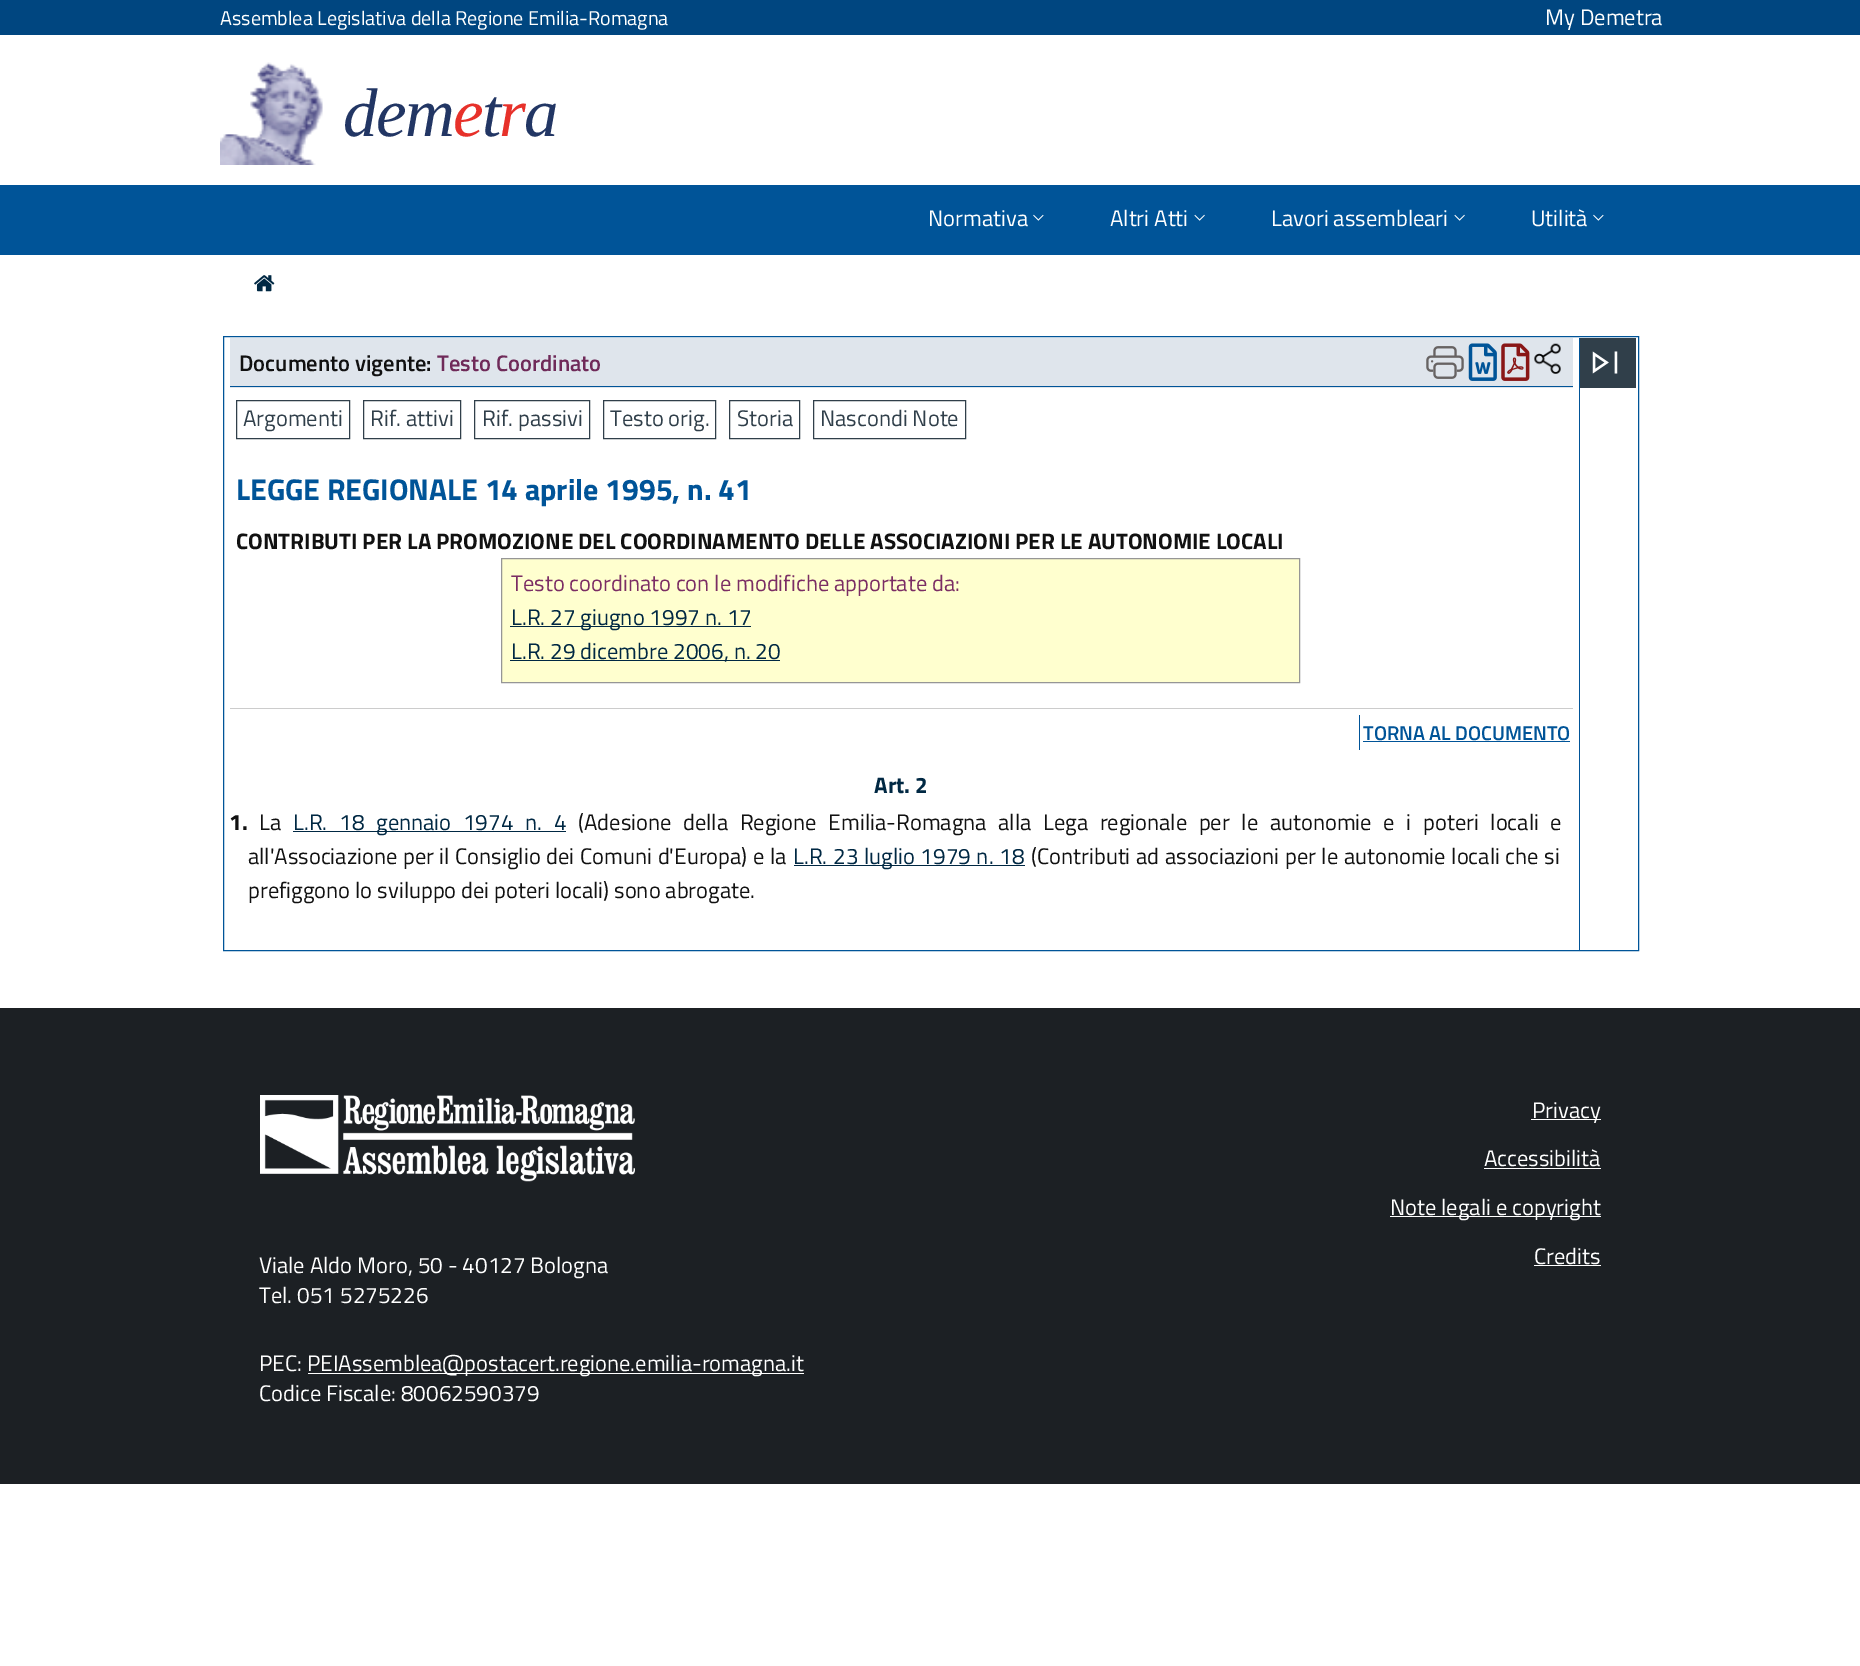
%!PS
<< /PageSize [1860 1666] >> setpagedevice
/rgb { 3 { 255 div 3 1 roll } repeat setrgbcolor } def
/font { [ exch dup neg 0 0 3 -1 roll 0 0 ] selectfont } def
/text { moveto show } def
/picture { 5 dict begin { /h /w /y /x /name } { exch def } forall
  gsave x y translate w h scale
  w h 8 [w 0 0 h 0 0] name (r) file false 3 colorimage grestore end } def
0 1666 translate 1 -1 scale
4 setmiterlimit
255 255 255 rgb
0 0 1860 1666 rectfill
0 70 128 rgb
0 0 1860 35 rectfill
(img_01.rgb) 220 62 103 103 picture
0 84 152 rgb
0 185 1860 70 rectfill
(img_02.rgb) 1033 214 11 7 picture
(img_03.rgb) 1194 214 11 7 picture
(img_03.rgb) 1454 214 11 7 picture
(img_02.rgb) 1593 214 11 7 picture
(img_04.rgb) 254 275 21 17 picture
223.5 336.5 1415 614 rectstroke
1579 338 1 612 rectfill
223 229 236 rgb
230 338 1343 50 rectfill
0 84 152 rgb
230 386 1343 1 rectfill
(img_05.rgb) 1426 346 38 33 picture
(img_06.rgb) 1468 343 29 38 picture
(img_07.rgb) 1501 343 29 38 picture
(img_08.rgb) 1534 343 27 31 picture
48 63 74 rgb
236.5 400.5 113 38 rectstroke
363.5 400.5 97 38 rectstroke
474.5 400.5 115 38 rectstroke
603.5 400.5 112 38 rectstroke
729.5 400.5 70 38 rectstroke
813.5 400.5 152 38 rectstroke
255 255 207 rgb
501.5 558.5 moveto 798 0 rlineto 0 124 rlineto -798 0 rlineto closepath gsave fill grestore
150 150 150 rgb
stroke
0 40 67 rgb
510 626 241 1 rectfill
510 660 270 1 rectfill
204 204 204 rgb
230 708 1343 1 rectfill
0 84 152 rgb
1359 715 1 35 rectfill
1363 741 207 1 rectfill
0 40 67 rgb
293 831 273 1 rectfill
794 865 231 1 rectfill
48 63 74 rgb
1580 338 56 50 rectfill
(img_09.rgb) 1592 351 26 23 picture
28 32 36 rgb
0 1008 1860 476 rectfill
255 255 255 rgb
1531 1119 70 1 rectfill
1484 1168 117 1 rectfill
1390 1216 211 1 rectfill
1534 1265 67 1 rectfill
(img_10.rgb) 260 1095 375 87 picture
308 1373 496 1 rectfill
/TitilliumWeb-Regular 20 font
(Assemblea Legislativa della Regione Emilia-Romagna) 220 25 text
/TitilliumWeb-Regular 22.5 font
(My Demetra) 1545 25 text
/LiberationSerif-Italic 69 font
34 54 100 rgb
343 136 moveto -1.5 0 (dem) ashow
231 49 42 rgb
453 136 moveto -1.5 0 (e) ashow
34 54 100 rgb
482 136 moveto -1.5 0 (t) ashow
231 49 42 rgb
499 136 moveto -1.5 0 (r) ashow
34 54 100 rgb
524 136 moveto -1.5 0 (a) ashow
/TitilliumWeb-Regular 22.5 font
255 255 255 rgb
(Normativa) 928 226 text
(Altri Atti) 1110 226 text
(Lavori assembleari) 1271 226 text
(Utilità) 1531 226 text
/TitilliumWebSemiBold-SemiBold 22.5 font
17 17 17 rgb
(Documento vigente:) 239 371 text
111 42 89 rgb
(Testo Coordinato) 437 371 text
/TitilliumWeb-Regular 22.5 font
48 63 74 rgb
(Argomenti) 243 426 text
(Rif. attivi) 370 426 text
(Rif. passivi) 482 426 text
(Testo orig.) 610 426 text
(Storia) 737 426 text
(Nascondi Note) 820 426 text
/TitilliumWeb-Bold 30 font
0 84 152 rgb
(LEGGE REGIONALE 14 aprile 1995, n. 41) 236 500 text
/TitilliumWeb-Bold 22.5 font
17 17 17 rgb
(CONTRIBUTI PER LA PROMOZIONE DEL COORDINAMENTO DELLE ASSOCIAZIONI PER LE AUTONOMIE LOCALI) 236 549 text
/TitilliumWeb-Regular 22.5 font
123 45 100 rgb
(Testo coordinato con le modifiche apportate da:) 511 591 text
0 40 67 rgb
(L.R. 27 giugno 1997 n. 17) 511 625 text
(L.R. 29 dicembre 2006, n. 20) 511 659 text
/TitilliumWebSemiBold-SemiBold 20 font
0 84 152 rgb
(TORNA AL DOCUMENTO) 1363 740 text
/TitilliumWeb-Bold 22.5 font
0 40 67 rgb
(Art. 2) 874 793 text
17 17 17 rgb
(1.) 229 830 text
/TitilliumWeb-Regular 22.5 font
(La) 259 830 text
0 40 67 rgb
293 830 moveto 6.75 0 32 (L.R. 18 gennaio 1974 n. 4) widthshow
17 17 17 rgb
578 830 moveto 6.75 0 32 (\(Adesione della Regione Emilia-Romagna alla Lega regionale per le autonomie e i poteri locali e) widthshow
248 864 moveto 0.75 0 32 (all'Associazione per il Consiglio dei Comuni d'Europa\) e la) widthshow
0 40 67 rgb
793 864 moveto 0.75 0 32 (L.R. 23 luglio 1979 n. 18) widthshow
17 17 17 rgb
1031 864 moveto 0.75 0 32 (\(Contributi ad associazioni per le autonomie locali che si) widthshow
(prefiggono lo sviluppo dei poteri locali\) sono abrogate.) 248 898 text
255 255 255 rgb
(Privacy) 1532 1118 text
(Accessibilità) 1484 1166 text
(Note legali e copyright) 1390 1215 text
(Credits) 1534 1264 text
(Viale Aldo Moro, 50 - 40127 Bologna) 259 1273 text
(Tel. 051 5275226) 259 1303 text
(PEC:) 259 1371 text
(PEIAssemblea@postacert.regione.emilia-romagna.it) 307 1371 text
(Codice Fiscale: 80062590379) 259 1401 text
showpage
